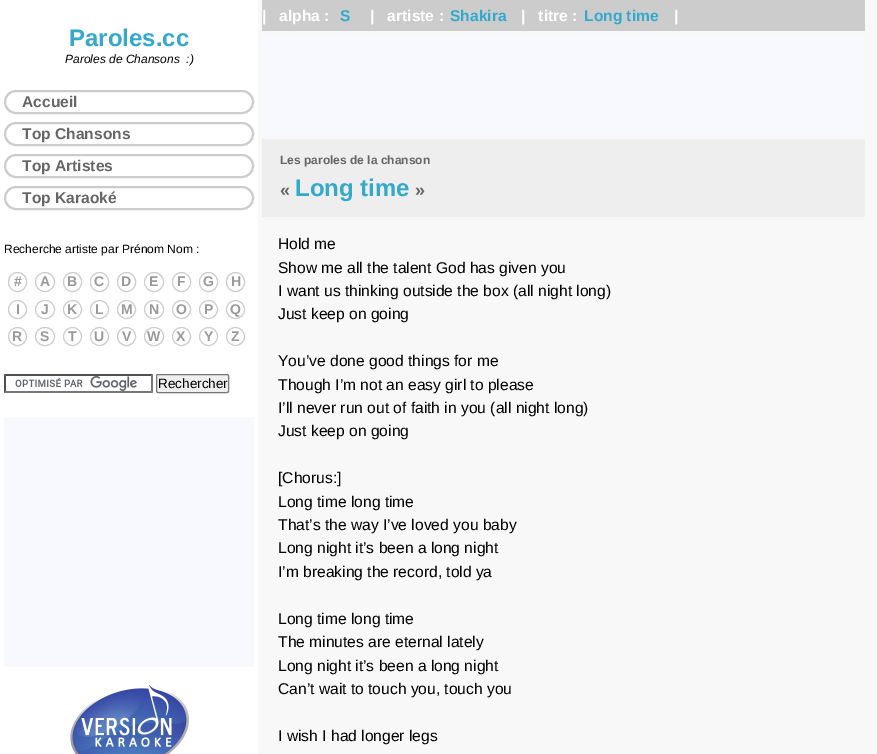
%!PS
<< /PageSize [877 754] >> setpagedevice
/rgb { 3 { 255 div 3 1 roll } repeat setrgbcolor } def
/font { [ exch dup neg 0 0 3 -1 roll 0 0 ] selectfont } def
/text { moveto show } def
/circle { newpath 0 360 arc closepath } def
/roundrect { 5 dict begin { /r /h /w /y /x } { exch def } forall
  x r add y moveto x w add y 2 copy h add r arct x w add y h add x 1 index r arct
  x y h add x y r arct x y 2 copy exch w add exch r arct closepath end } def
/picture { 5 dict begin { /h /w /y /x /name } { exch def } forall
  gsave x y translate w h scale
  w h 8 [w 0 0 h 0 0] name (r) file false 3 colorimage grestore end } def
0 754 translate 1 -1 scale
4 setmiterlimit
248 248 248 rgb
0 0 877 754 rectfill
255 255 255 rgb
0 0 258 754 rectfill
204 204 204 rgb
2 setlinewidth
5 91 248 22 11 roundrect stroke
5 123 248 22 11 roundrect stroke
5 155 248 22 11 roundrect stroke
5 187 248 22 11 roundrect stroke
1 setlinewidth
8.5 272.5 18 19 9 roundrect stroke
45 282 9.5 circle stroke
63.5 272.5 18 19 9 roundrect stroke
90.5 272.5 18 19 9 roundrect stroke
117.5 272.5 18 19 9 roundrect stroke
154 282 9.5 circle stroke
172.5 272.5 18 19 9 roundrect stroke
199.5 272.5 18 19 9 roundrect stroke
226.5 272.5 18 19 9 roundrect stroke
17.5 309.5 9 circle stroke
35.5 300.5 19 18 9 roundrect stroke
72.5 309.5 9 circle stroke
99.5 309.5 9 circle stroke
126.5 309.5 9 circle stroke
144.5 300.5 19 18 9 roundrect stroke
181.5 309.5 9 circle stroke
208.5 309.5 9 circle stroke
235.5 309.5 9 circle stroke
17.5 336.5 9 circle stroke
35.5 327.5 19 18 9 roundrect stroke
72.5 336.5 9 circle stroke
99.5 336.5 9 circle stroke
126.5 336.5 9 circle stroke
144.5 327.5 19 18 9 roundrect stroke
181.5 336.5 9 circle stroke
208.5 336.5 9 circle stroke
235.5 336.5 9 circle stroke
(img_01.rgb) 15 376 122 15 picture
79 79 79 rgb
4 374 moveto 149 0 rlineto -2 2 rlineto -145 0 rlineto closepath fill
118 118 118 rgb
153 374 moveto 0 19 rlineto -2 -2 rlineto 0 -15 rlineto closepath fill
153 393 moveto -149 0 rlineto 2 -2 rlineto 145 0 rlineto closepath fill
79 79 79 rgb
4 393 moveto 0 -19 rlineto 2 2 rlineto 0 15 rlineto closepath fill
239 239 239 rgb
156.5 374.5 72 18 1.5 roundrect gsave fill grestore
118 118 118 rgb
stroke
248 248 255 rgb
4 417 250 250 rectfill
(img_02.rgb) 70 685 119 69 picture
204 204 204 rgb
262 0 603 31 rectfill
248 248 255 rgb
262 35 603 100 rectfill
238 238 238 rgb
262 139 603 78 rectfill
/LiberationSans-Bold 24 font
51 170 204 rgb
(Paroles.cc) 69 46 text
/LiberationSans-Italic 12 font
0 0 0 rgb
(Paroles de Chansons  :\)) 65 63 text
/LiberationSans-Bold 15.6 font
102 102 102 rgb
(Accueil) 22 107 text
(Top Chansons) 22 139 text
(Top Artistes) 22 171 text
(Top Karaoké) 22 203 text
/LiberationSans-Regular 12 font
0 0 0 rgb
(Recherche artiste par Prénom Nom :) 4 253 text
/LiberationSans-Bold 14 font
153 153 153 rgb
(#) 14 286 text
(A) 40 286 text
(B) 67 286 text
(C) 94 286 text
(D) 121 286 text
(E) 149 286 text
(F) 177 286 text
(G) 203 286 text
(H) 231 286 text
(I) 16 314 text
(J) 41 314 text
(K) 67 314 text
(L) 95 314 text
(M) 121 314 text
(N) 149 314 text
(O) 176 314 text
(P) 204 314 text
(Q) 230 314 text
(R) 12 341 text
(S) 40 341 text
(T) 68 341 text
(U) 94 341 text
(V) 122 341 text
(W) 147 341 text
(X) 176 341 text
(Y) 204 341 text
(Z) 231 341 text
/LiberationSans-Regular 13.5 font
0 0 0 rgb
(Rechercher) 158 388 text
/LiberationSans-Bold 15.6 font
255 255 255 rgb
(|   alpha :) 262 21 text
51 170 204 rgb
(S) 340 21 text
255 255 255 rgb
(|   artiste :) 370 21 text
51 170 204 rgb
(Shakira) 450 21 text
255 255 255 rgb
(|   titre :) 521 21 text
51 170 204 rgb
(Long time) 584 21 text
255 255 255 rgb
(|) 674 21 text
/LiberationSans-Bold 12 font
102 102 102 rgb
(Les paroles de la chanson) 280 164 text
/LiberationSans-Bold 18 font
(«) 280 196 text
/LiberationSans-Bold 24 font
51 170 204 rgb
(Long time) 295 196 text
/LiberationSans-Bold 18 font
102 102 102 rgb
(») 415 196 text
/LiberationSans-Regular 15.6 font
0 0 0 rgb
(Hold me) 278 249 text
(Show me all the talent God has given you) 278 273 text
(I want us thinking outside the box \(all night long\)) 278 296 text
(Just keep on going) 278 319 text
(You’ve done good things for me) 278 366 text
(Though I’m not an easy girl to please) 278 390 text
(I’ll never run out of faith in you \(all night long\)) 278 413 text
(Just keep on going) 278 436 text
([Chorus:]) 278 483 text
(Long time long time) 278 507 text
(That’s the way I’ve loved you baby) 278 530 text
(Long night it’s been a long night) 278 553 text
(I’m breaking the record, told ya) 278 577 text
(Long time long time) 278 624 text
(The minutes are eternal lately) 278 647 text
(Long night it’s been a long night) 278 671 text
(Can’t wait to touch you, touch you) 278 694 text
(I wish I had longer legs) 278 741 text
showpage
